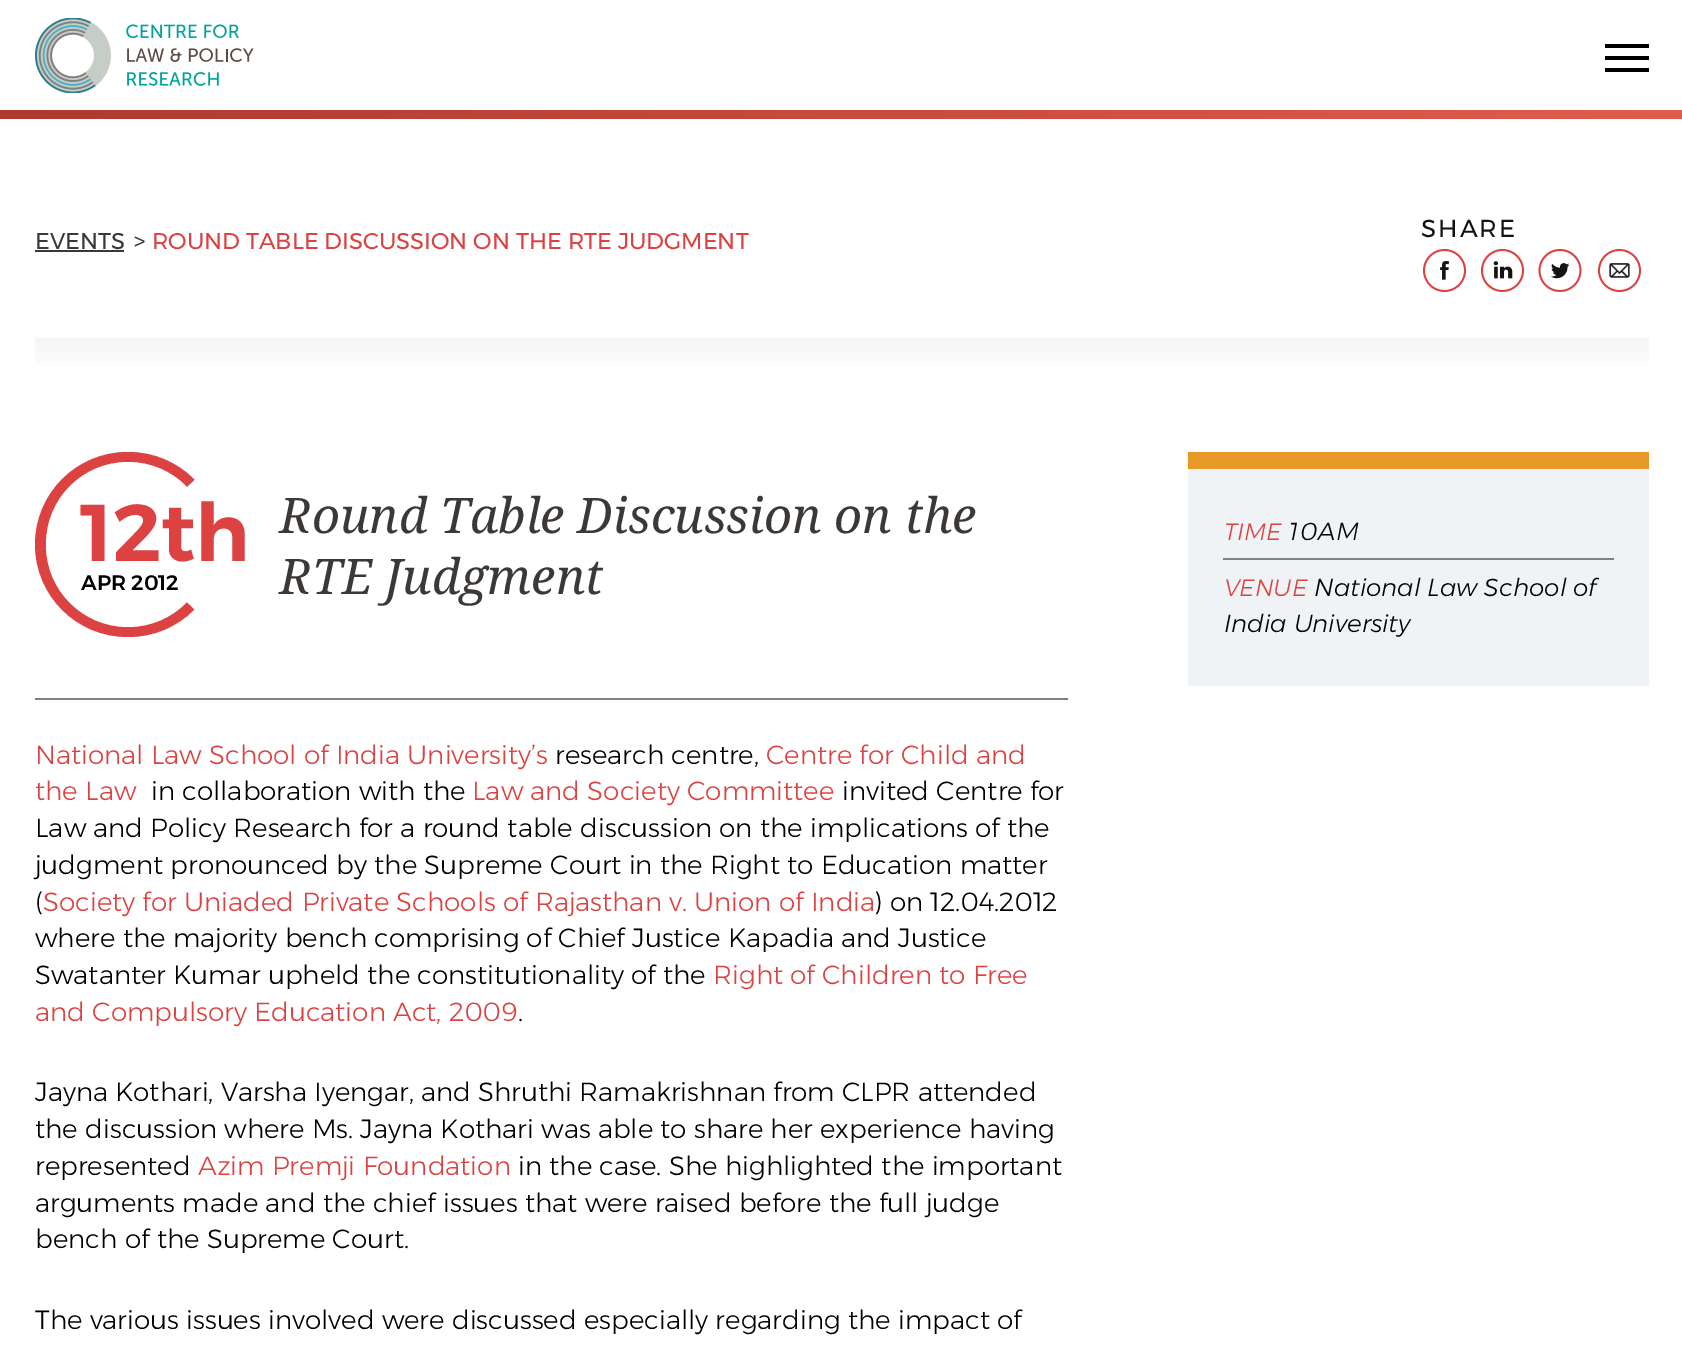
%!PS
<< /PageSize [1682 1347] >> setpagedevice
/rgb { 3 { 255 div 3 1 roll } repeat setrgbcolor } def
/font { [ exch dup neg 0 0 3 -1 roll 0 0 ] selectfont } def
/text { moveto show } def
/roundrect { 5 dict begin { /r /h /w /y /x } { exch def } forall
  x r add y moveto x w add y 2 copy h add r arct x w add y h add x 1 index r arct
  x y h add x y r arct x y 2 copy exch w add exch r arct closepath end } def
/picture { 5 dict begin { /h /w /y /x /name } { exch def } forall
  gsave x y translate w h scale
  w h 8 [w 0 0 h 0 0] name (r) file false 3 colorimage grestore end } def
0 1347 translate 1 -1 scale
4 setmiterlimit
255 255 255 rgb
0 0 1682 1347 rectfill
(img_01.rgb) 35 18 219 75 picture
0 0 0 rgb
1605 44 44 4 rectfill
1605 56 44 4 rectfill
1605 68 44 4 rectfill
gsave 0 110 moveto 1682 0 rlineto 0 9 rlineto -1682 0 rlineto closepath clip newpath
<< /ShadingType 2 /ColorSpace /DeviceRGB /Coords [0 115 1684 115] /Extend [true true] /Function << /FunctionType 2 /Domain [0 1] /C0 [0.678 0.227 0.184] /C1 [0.886 0.361 0.302] /N 1 >> >> shfill grestore
(img_02.rgb) 1422 248 45 45 picture
(img_03.rgb) 1480 248 45 45 picture
(img_04.rgb) 1538 248 44 45 picture
(img_05.rgb) 1597 248 45 45 picture
59 56 53 rgb
35 250 89 2 rectfill
gsave 35 338 moveto 1614 0 rlineto 0 26 rlineto -1614 0 rlineto closepath clip newpath
<< /ShadingType 2 /ColorSpace /DeviceRGB /Coords [842 338 842 373] /Extend [true true] /Function << /FunctionType 2 /Domain [0 1] /C0 [0.961 0.961 0.961] /C1 [1 1 1] /N 1 >> >> shfill grestore
128 128 128 rgb
35 698 1033 2 rectfill
219 66 65 rgb
35 452 186 185 92.5 roundrect fill
255 255 255 rgb
46 462 164 165 82 roundrect fill
8.8 setlinewidth
196 480 moveto 36 35.5 36 94 0 130 rcurveto stroke
15.8 setlinewidth
191 483.5 moveto 33.5 34 33.5 89 0 122.5 rcurveto stroke
240 243 245 rgb
1188 469 461 217 rectfill
231 152 38 rgb
1188 452 461 17 rectfill
128 128 128 rgb
1223 558 391 2 rectfill
/Montserrat-Regular 24.5 font
20 19 15 rgb
1421 237 moveto 2 0 (SHARE) ashow
/Montserrat-Regular 22.75 font
59 56 53 rgb
(EVENTS) 35 249 text
(>) 134 249 text
219 66 65 rgb
(ROUND TABLE DISCUSSION ON THE RTE JUDGMENT) 152 249 text
/Montserrat-SemiBold 80.5 font
(12th) 81 561 text
/Montserrat-Medium 21 font
0 0 0 rgb
(APR 2012) 81 590 text
/DroidSerif-Italic 49 font
59 56 53 rgb
(Round Table Discussion on the) 280 533 text
(RTE Judgment) 280 594 text
/Montserrat-Light 26.25 font
219 66 65 rgb
(National Law School of India University’s) 35 764 text
0 0 0 rgb
(research centre,) 555 764 text
219 66 65 rgb
(Centre for Child and) 766 764 text
(the Law) 35 800 text
0 0 0 rgb
(in collaboration with the) 151 800 text
219 66 65 rgb
(Law and Society Committee) 472 800 text
0 0 0 rgb
(invited Centre for) 842 800 text
(Law and Policy Research for a round table discussion on the implications of the) 35 837 text
(judgment pronounced by the Supreme Court in the Right to Education matter) 35 874 text
(\() 35 911 text
219 66 65 rgb
(Society for Uniaded Private Schools of Rajasthan v. Union of India) 43 911 text
0 0 0 rgb
(\) on 12.04.2012) 875 911 text
(where the majority bench comprising of Chief Justice Kapadia and Justice) 35 947 text
(Swatanter Kumar upheld the constitutionality of the) 35 984 text
219 66 65 rgb
(Right of Children to Free) 713 984 text
(and Compulsory Education Act, 2009) 35 1021 text
0 0 0 rgb
(.) 518 1021 text
(Jayna Kothari, Varsha Iyengar, and Shruthi Ramakrishnan from CLPR attended) 35 1101 text
(the discussion where Ms. Jayna Kothari was able to share her experience having) 35 1138 text
(represented) 35 1175 text
219 66 65 rgb
(Azim Premji Foundation) 198 1175 text
0 0 0 rgb
(in the case. She highlighted the important) 518 1175 text
(arguments made and the chief issues that were raised before the full judge) 35 1212 text
(bench of the Supreme Court.) 35 1248 text
(The various issues involved were discussed especially regarding the impact of) 35 1329 text
/Montserrat-LightItalic 23.5 font
219 66 65 rgb
(TIME) 1224 540 text
/Montserrat-LightItalic 24.5 font
0 0 0 rgb
(10AM) 1288 540 text
/Montserrat-LightItalic 23.5 font
219 66 65 rgb
(VENUE) 1224 596 text
/Montserrat-LightItalic 24.5 font
0 0 0 rgb
(National Law School of) 1314 596 text
(India University) 1224 632 text
showpage
